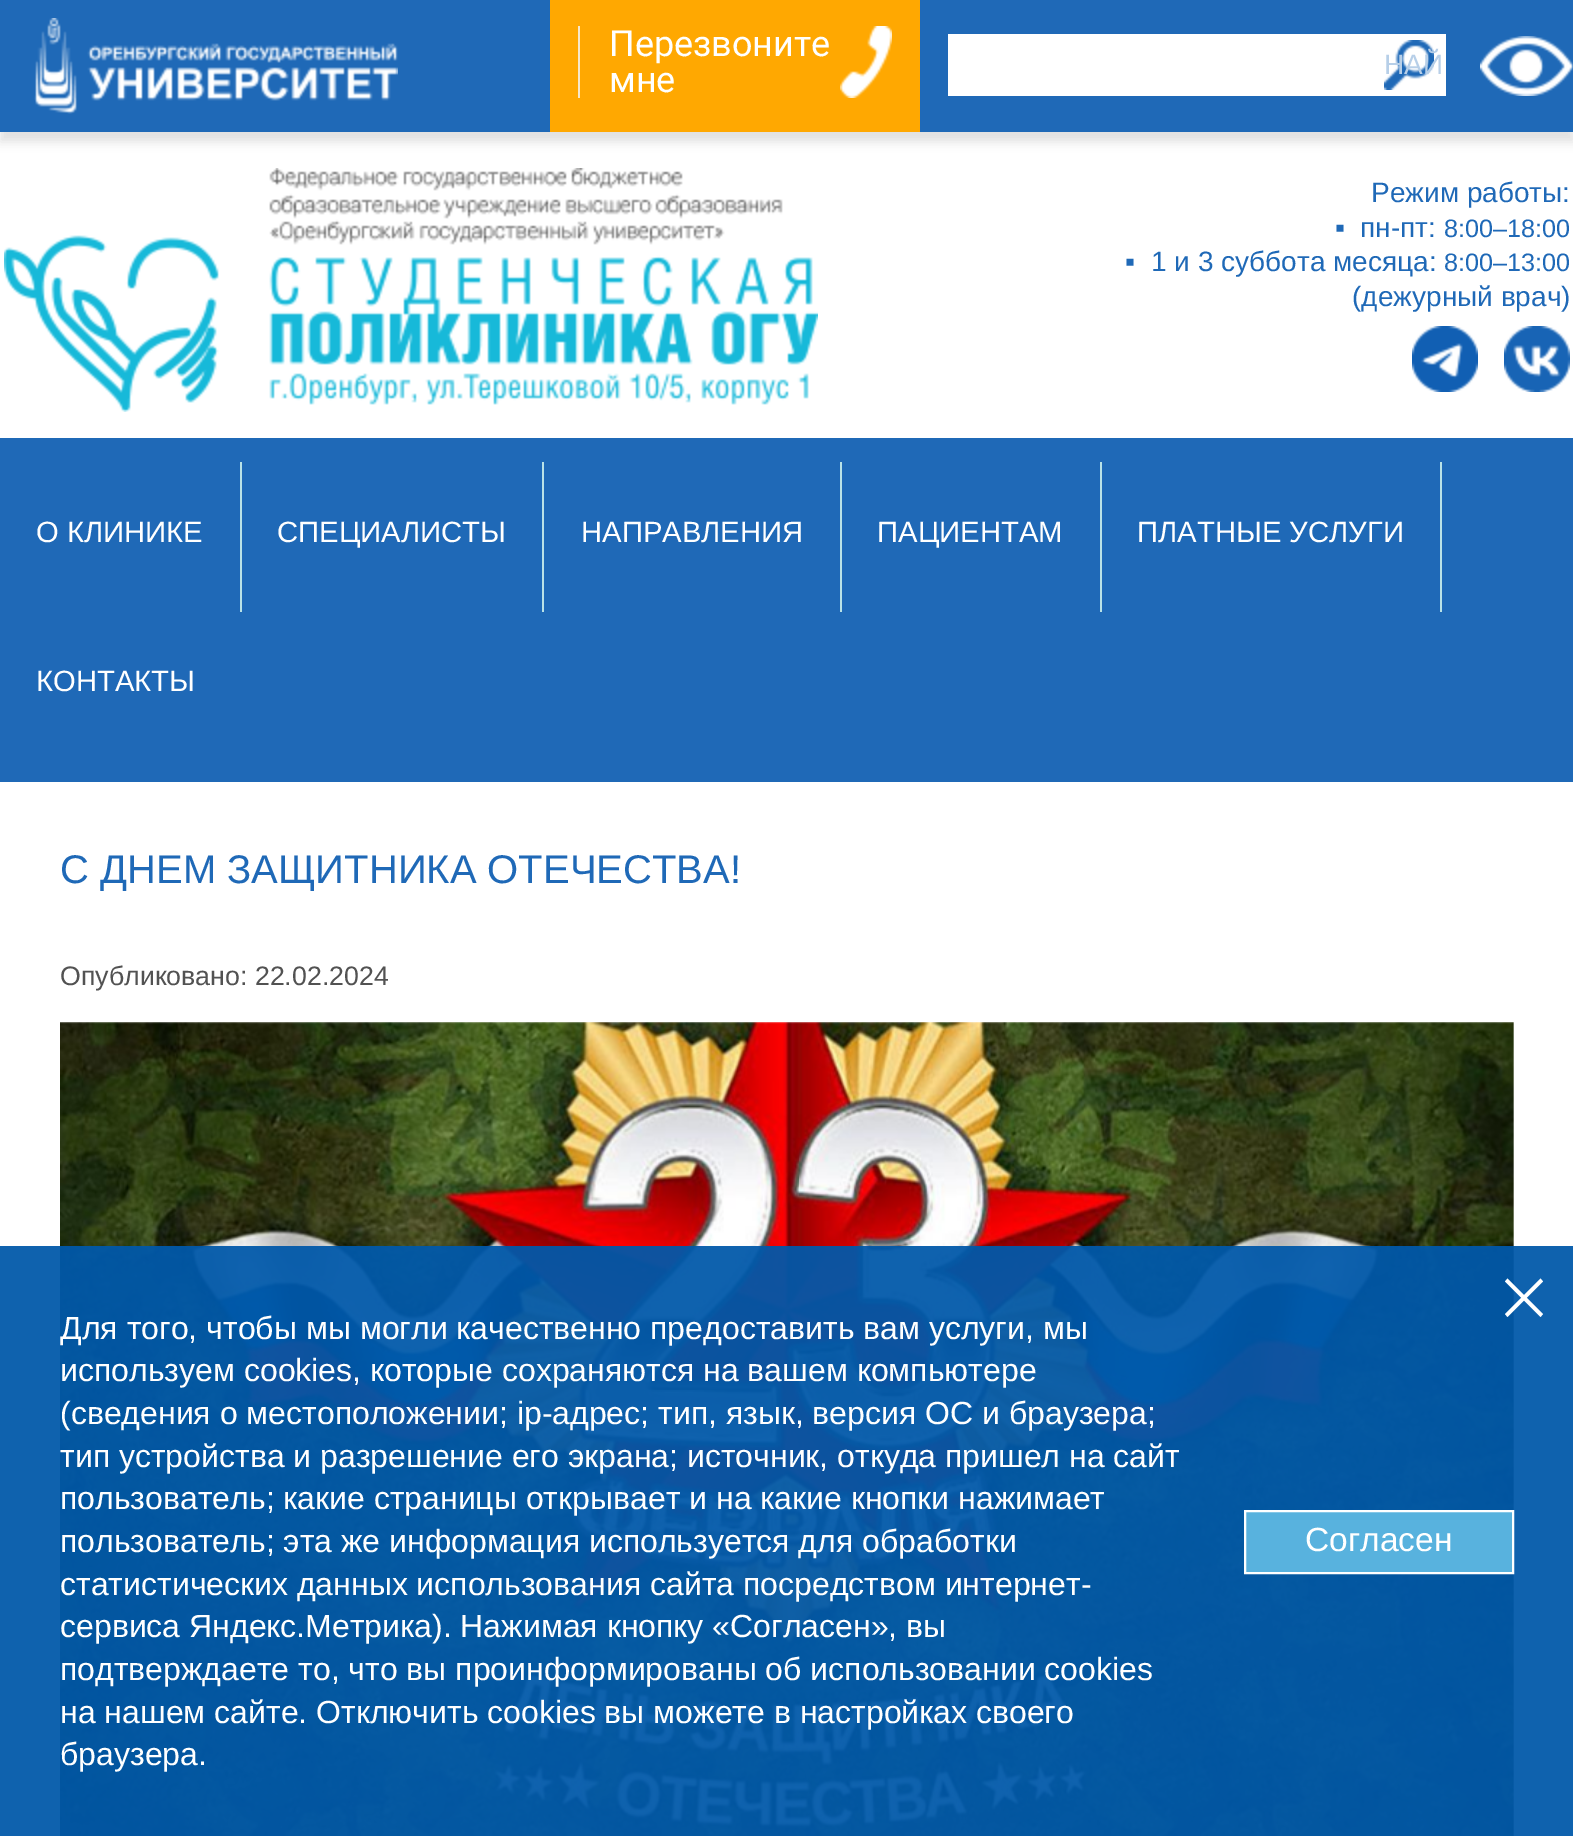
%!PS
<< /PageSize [1573 1836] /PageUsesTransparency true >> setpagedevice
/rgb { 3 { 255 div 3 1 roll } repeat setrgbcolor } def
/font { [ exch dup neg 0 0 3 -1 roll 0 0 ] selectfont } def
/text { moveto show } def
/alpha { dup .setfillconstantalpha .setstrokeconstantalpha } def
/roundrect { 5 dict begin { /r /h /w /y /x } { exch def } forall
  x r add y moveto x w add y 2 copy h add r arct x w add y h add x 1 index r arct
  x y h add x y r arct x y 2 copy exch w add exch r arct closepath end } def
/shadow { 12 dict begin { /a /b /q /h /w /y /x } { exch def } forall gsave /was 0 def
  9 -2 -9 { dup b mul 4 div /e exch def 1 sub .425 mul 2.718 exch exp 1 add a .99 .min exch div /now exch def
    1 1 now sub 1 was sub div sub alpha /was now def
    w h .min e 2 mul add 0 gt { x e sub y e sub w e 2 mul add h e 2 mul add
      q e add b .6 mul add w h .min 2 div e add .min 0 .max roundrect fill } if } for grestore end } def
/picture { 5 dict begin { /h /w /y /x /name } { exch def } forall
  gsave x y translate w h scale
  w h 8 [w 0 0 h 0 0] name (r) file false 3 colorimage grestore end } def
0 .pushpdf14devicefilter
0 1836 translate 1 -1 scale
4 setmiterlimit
255 255 255 rgb
0 0 1573 1836 rectfill
224 224 224 rgb
0 10 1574 132 0 5 1 shadow
31 105 183 rgb
0 0 1573 132 rectfill
(img_01.rgb) 34 18 364 96 picture
255 168 1 rgb
550 0 370 132 rectfill
246 231 203 rgb
578 26 2 72 rectfill
(img_02.rgb) 840 26 52 72 picture
255 255 255 rgb
948 34 498 62 rectfill
(img_03.rgb) 1384 40 50 50 picture
(img_04.rgb) 1480 36 93 60 picture
(img_05.rgb) 4 168 814 244 picture
(img_06.rgb) 1412 326 66 66 picture
(img_07.rgb) 1504 326 66 66 picture
31 105 183 rgb
0 438 1573 344 rectfill
185 226 231 rgb
240 462 2 150 rectfill
542 462 2 150 rectfill
840 462 2 150 rectfill
1100 462 2 150 rectfill
1440 462 2 150 rectfill
(img_08.rgb) 60 1022 1454 814 picture
0.94 alpha
0 88 169 rgb
0 1246 1573 590 rectfill
1 alpha
255 255 255 rgb
1540.5 1278.5 moveto 2.5 3 rlineto -35.5 35.5 rlineto -2.5 -3 rlineto closepath fill
1505 1281.5 moveto 2.5 -3 rlineto 35.5 35.5 rlineto -2.5 3 rlineto closepath fill
88 178 222 rgb
1245 1511 moveto 268 0 rlineto 0 62 rlineto -268 0 rlineto closepath gsave fill grestore
255 255 255 rgb
2 setlinewidth
stroke
/Roboto-Regular 36 font
(Перезвоните) 609 56 text
(мне) 609 92 text
/LiberationSans-Regular 28 font
183 207 232 rgb
(НАЙ) 1384 74 text
31 105 183 rgb
(Режим работы:) 1371 202 text
(▪) 1335 237 text
(пн-пт:) 1360 237 text
/LiberationSans-Regular 25.25 font
(8:00–18:00) 1444 237 text
/LiberationSans-Regular 28 font
(▪) 1125 271 text
(1 и 3 суббота месяца:) 1151 271 text
/LiberationSans-Regular 25.25 font
(8:00–13:00) 1444 271 text
/LiberationSans-Regular 28 font
(\(дежурный врач\)) 1352 306 text
/LiberationSans-Regular 29.25 font
255 255 255 rgb
(О КЛИНИКЕ) 36 542 text
(СПЕЦИАЛИСТЫ) 277 542 text
(НАПРАВЛЕНИЯ) 581 542 text
(ПАЦИЕНТАМ) 877 542 text
(ПЛАТНЫЕ УСЛУГИ) 1137 542 text
(КОНТАКТЫ) 36 691 text
/LiberationSans-Regular 40 font
31 105 183 rgb
(С ДНЕМ ЗАЩИТНИКА ОТЕЧЕСТВА!) 60 883 text
/LiberationSans-Regular 26.75 font
82 82 82 rgb
(Опубликовано: 22.02.2024) 60 985 text
/LiberationSans-Regular 32 font
255 255 255 rgb
(Для того, чтобы мы могли качественно предоставить вам услуги, мы) 60 1339 text
(используем cookies, которые сохраняются на вашем компьютере) 60 1381 text
(\(сведения о местоположении; ip-адрес; тип, язык, версия ОС и браузера;) 60 1424 text
(тип устройства и разрешение его экрана; источник, откуда пришел на сайт) 60 1467 text
(пользователь; какие страницы открывает и на какие кнопки нажимает) 60 1509 text
(пользователь; эта же информация используется для обработки) 60 1552 text
(статистических данных использования сайта посредством интернет-) 60 1595 text
(сервиса Яндекс.Метрика\). Нажимая кнопку «Согласен», вы) 60 1637 text
(подтверждаете то, что вы проинформированы об использовании cookies) 60 1680 text
(на нашем сайте. Отключить cookies вы можете в настройках своего) 60 1723 text
(браузера.) 60 1765 text
/LiberationSans-Regular 33.5 font
(Согласен) 1305 1551 text
.poppdf14devicefilter showpage
